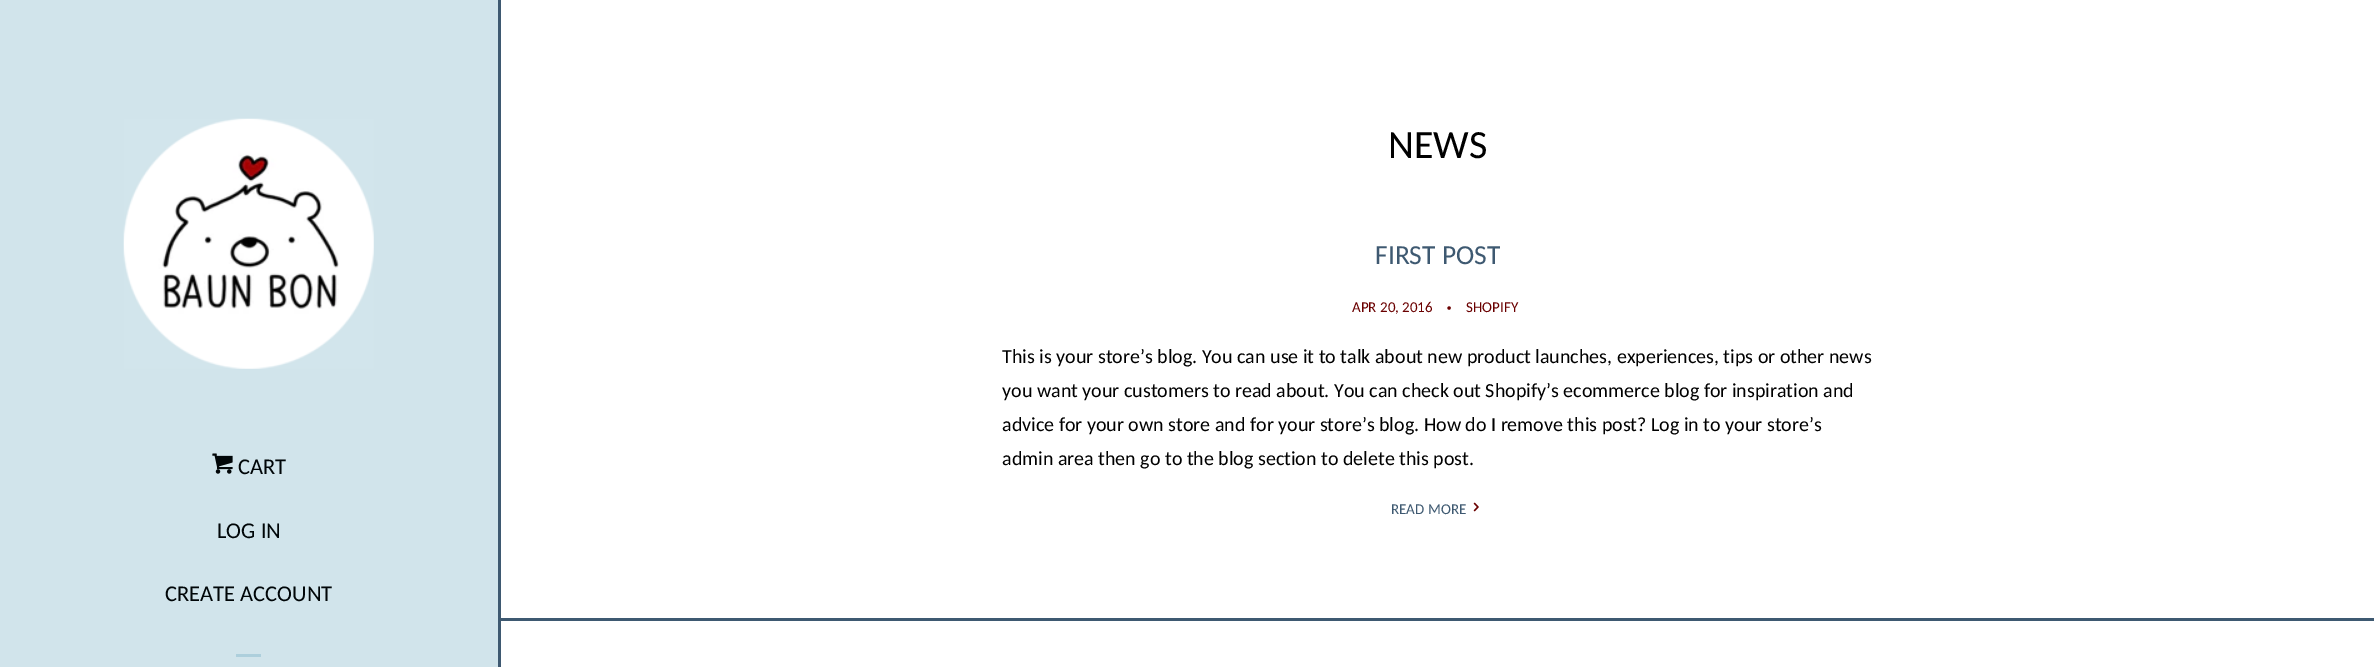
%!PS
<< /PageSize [2374 667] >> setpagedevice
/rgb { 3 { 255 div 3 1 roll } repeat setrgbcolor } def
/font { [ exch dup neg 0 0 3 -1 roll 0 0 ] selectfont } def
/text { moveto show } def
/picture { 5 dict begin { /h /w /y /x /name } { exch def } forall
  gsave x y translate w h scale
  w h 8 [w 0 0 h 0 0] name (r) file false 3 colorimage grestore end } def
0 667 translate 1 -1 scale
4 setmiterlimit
255 255 255 rgb
0 0 2374 667 rectfill
(img_01.rgb) 1473 502 6 10 picture
62 89 113 rgb
500 618 1874 3 rectfill
209 228 235 rgb
0 0 498 667 rectfill
62 89 113 rgb
498 0 3 667 rectfill
(img_02.rgb) 123 118 251 251 picture
(img_03.rgb) 212 453 21 21 picture
173 207 220 rgb
236 654 25 3 rectfill
/Carlito-Regular 40 font
0 0 0 rgb
(NEWS) 1388 158 text
/Carlito-Regular 27.5 font
62 89 113 rgb
(FIRST POST) 1375 264 text
/Carlito-Regular 15 font
106 0 0 rgb
(APR 20, 2016) 1352 312 text
/Carlito-Regular 25 font
(·) 1446 315 text
/Carlito-Regular 15 font
(SHOPIFY) 1466 312 text
/Carlito-Regular 20 font
0 0 0 rgb
(This is your store’s blog. You can use it to talk about new product launches, experiences, tips or other news) 1002 363 text
(you want your customers to read about. You can check out Shopify’s ecommerce blog for inspiration and) 1002 397 text
(advice for your own store and for your store’s blog. How do I remove this post? Log in to your store’s) 1002 431 text
(admin area then go to the blog section to delete this post.) 1002 465 text
/Carlito-Regular 15 font
62 89 113 rgb
(READ MORE) 1391 514 text
/Carlito-Regular 22.5 font
0 6 8 rgb
(CART) 238 474 text
(LOG IN) 217 538 text
(CREATE ACCOUNT) 165 601 text
showpage
